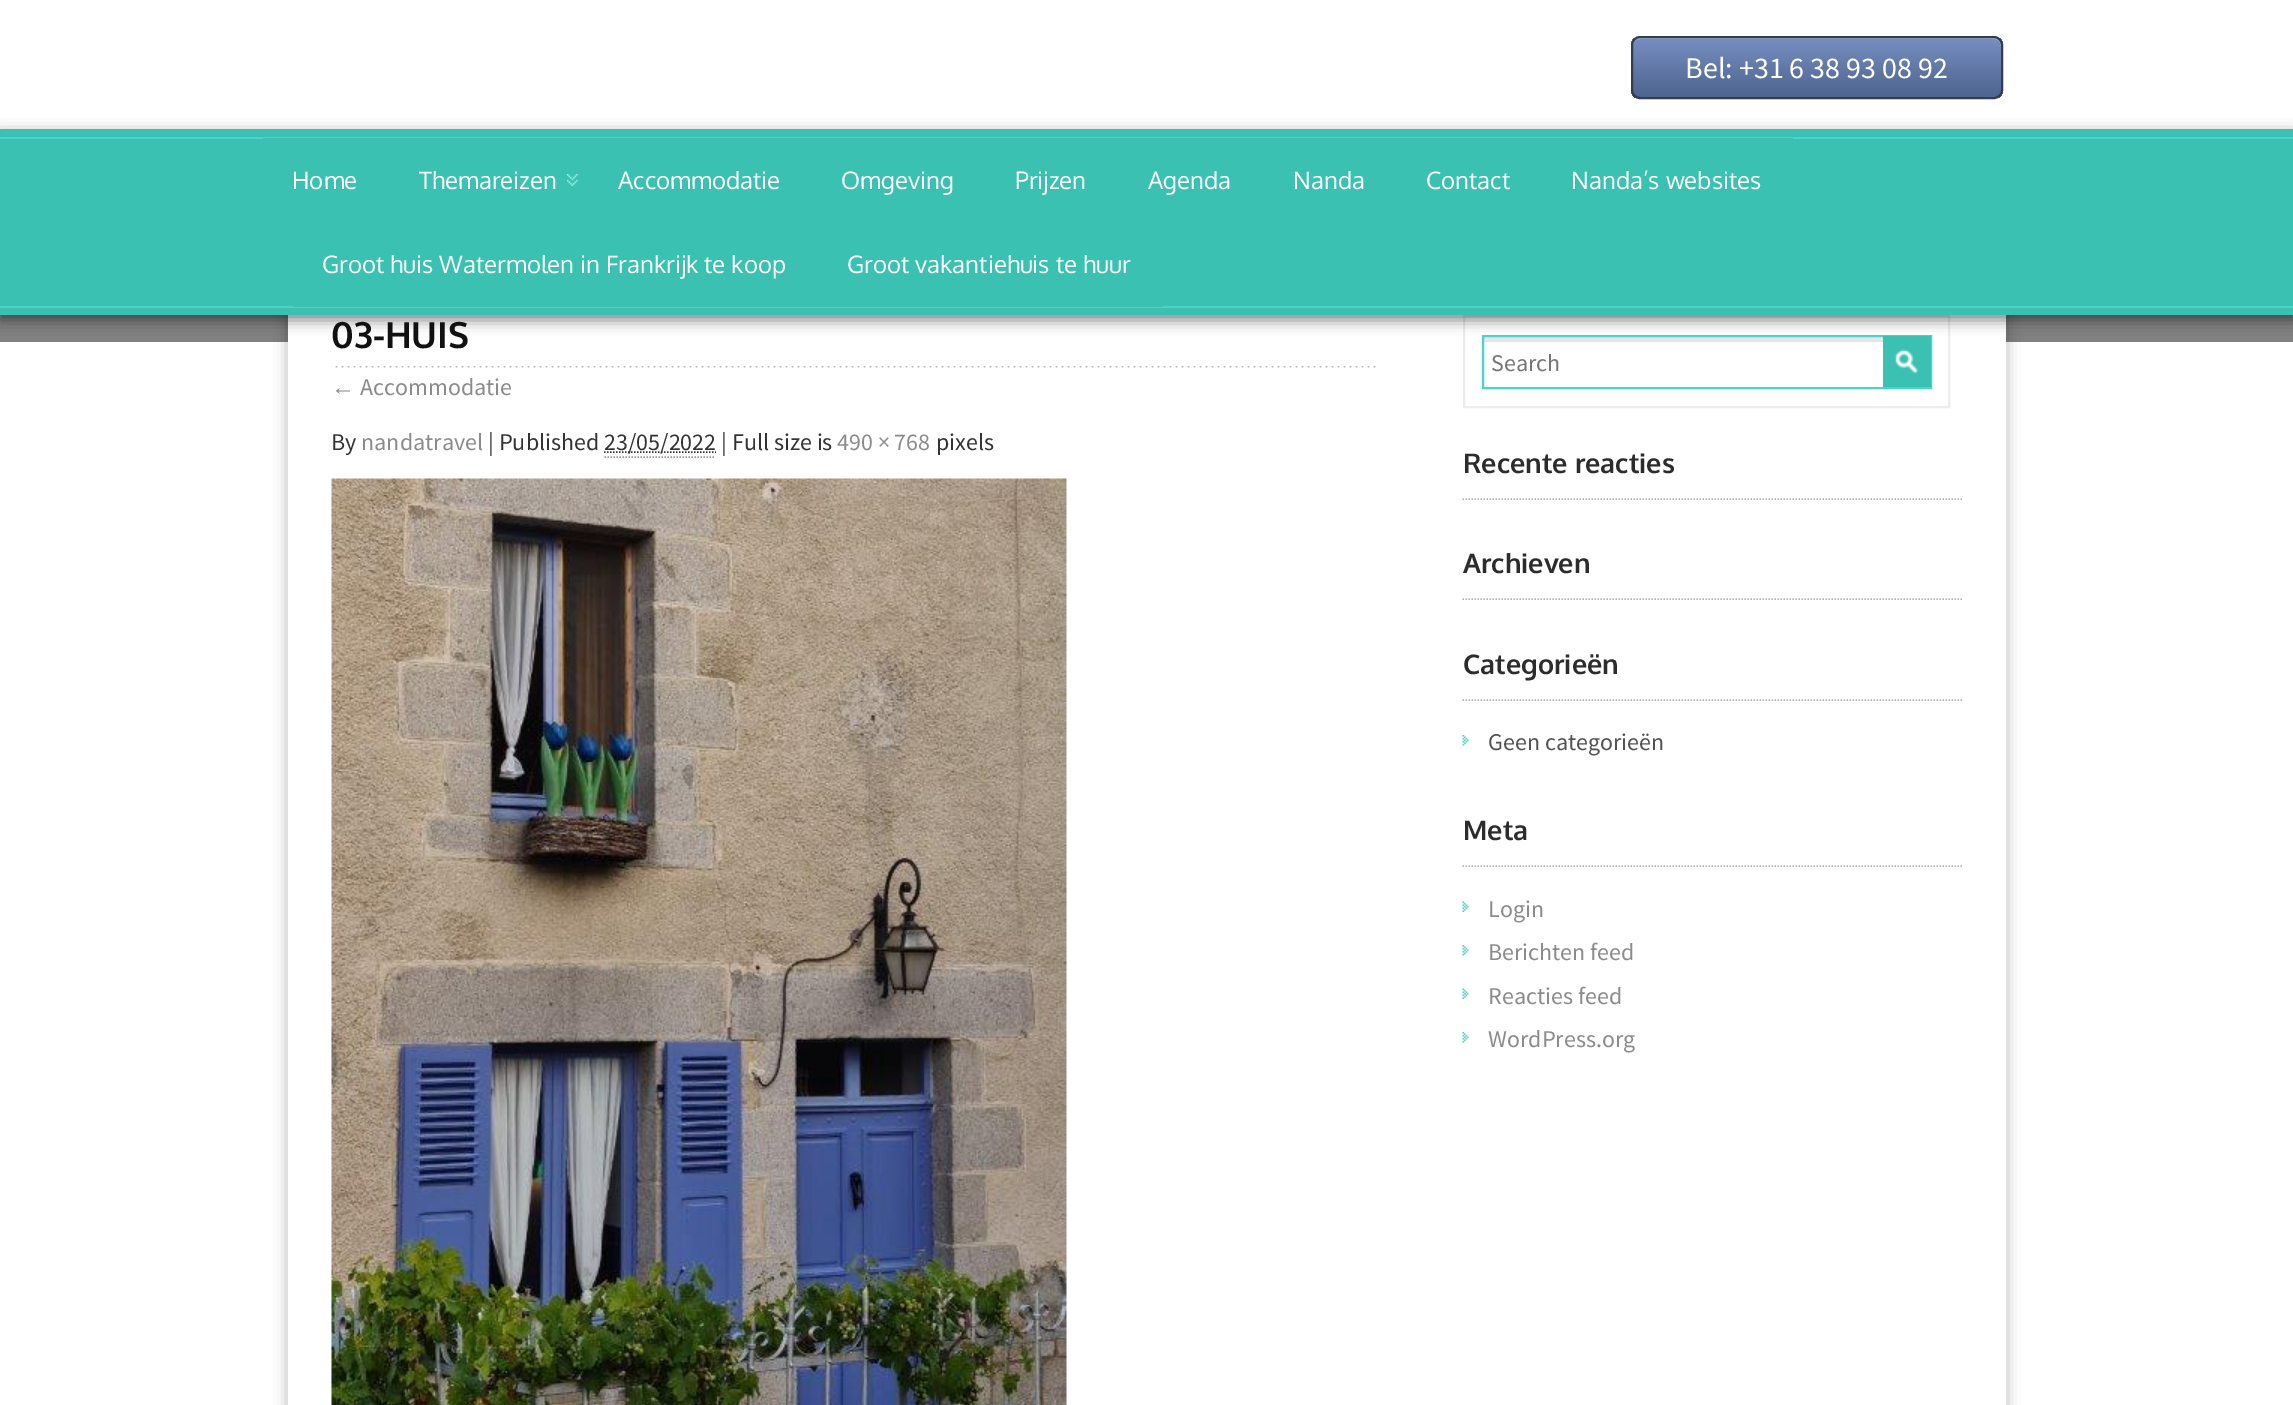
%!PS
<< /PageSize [2293 1405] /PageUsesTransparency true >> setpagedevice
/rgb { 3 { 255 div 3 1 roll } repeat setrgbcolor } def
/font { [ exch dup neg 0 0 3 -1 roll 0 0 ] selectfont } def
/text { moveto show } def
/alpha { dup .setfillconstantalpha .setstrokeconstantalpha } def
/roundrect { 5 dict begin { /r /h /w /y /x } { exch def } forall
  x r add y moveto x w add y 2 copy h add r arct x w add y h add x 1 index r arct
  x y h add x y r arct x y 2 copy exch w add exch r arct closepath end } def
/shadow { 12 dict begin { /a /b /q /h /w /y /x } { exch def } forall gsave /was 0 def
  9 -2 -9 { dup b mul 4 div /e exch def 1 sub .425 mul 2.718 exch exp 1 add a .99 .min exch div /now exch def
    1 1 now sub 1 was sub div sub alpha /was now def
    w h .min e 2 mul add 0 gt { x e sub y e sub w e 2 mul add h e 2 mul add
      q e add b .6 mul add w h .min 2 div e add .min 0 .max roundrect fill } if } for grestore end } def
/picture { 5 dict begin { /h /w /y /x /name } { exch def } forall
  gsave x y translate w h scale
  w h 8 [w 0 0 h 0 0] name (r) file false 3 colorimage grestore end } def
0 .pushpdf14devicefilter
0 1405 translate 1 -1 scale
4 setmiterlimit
255 255 255 rgb
0 0 2293 1405 rectfill
gsave
1631 36 372 63 9 roundrect clip newpath
gsave 1631 38 moveto 372 0 rlineto 0 60 rlineto -372 0 rlineto closepath clip newpath
<< /ShadingType 2 /ColorSpace /DeviceRGB /Coords [1632 38 1632 98] /Extend [true true] /Function << /FunctionType 3 /Domain [0 1] /Functions [<< /FunctionType 2 /Domain [0 1] /C0 [0.455 0.549 0.745] /C1 [0.455 0.549 0.745] /N 1 >> << /FunctionType 2 /Domain [0 1] /C0 [0.455 0.549 0.745] /C1 [0.302 0.392 0.561] /N 1 >>] /Bounds [0.05] /Encode [0 1 0 1] >> >> shfill grestore
grestore
167 185 219 rgb
1640 39 moveto 354 0 rlineto 4 0 7 3 7 7 rcurveto 0 -4 -4 -8 -8 -8 rcurveto -353 0 rlineto -4 0 -8 4 -8 8 rcurveto 0 -4 3 -7 8 -7 rcurveto closepath fill
49 61 83 rgb
2 setlinewidth
1632 37 370 61 8 roundrect stroke
128 128 128 rgb
0 315 2293 27 rectfill
0 0 0 rgb
290 248 1714 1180 0 7.5 0.4 shadow
255 255 255 rgb
288 315 1718 1090 rectfill
237 237 237 rgb
1464 316 485 91 rectstroke
230 230 230 rgb
1484 337 399 5 rectfill
74 214 198 rgb
1483 336 448 52 rectstroke
58 193 178 rgb
1883 336 48 51 rectfill
0 0 0 rgb
0 134 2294 186 0 7 0.5 shadow
58 193 178 rgb
0 129 2293 186 rectfill
74 214 198 rgb
0 137 2293 2 rectfill
0 306 2293 2 rectfill
58 193 178 rgb
263 138 1530 1 rectfill
(img_01.rgb) 567 174 11 12 picture
293 306 870 1 rectfill
(img_02.rgb) 331 366 1045 2 picture
153 153 153 rgb
1.5 setlinewidth
[1.5 1.5] 0 setdash
604.5 457 moveto 111 0 rlineto stroke
51 51 51 rgb
604 452 moveto 112 0 rlineto stroke
(img_03.rgb) 331 478 736 927 picture
(img_04.rgb) 1894 349 24 25 picture
180 180 180 rgb
1462.5 499 moveto 499.5 0 rlineto stroke
1462.5 599 moveto 499.5 0 rlineto stroke
1462.5 700 moveto 499.5 0 rlineto stroke
(img_05.rgb) 1462 735 7 11 picture
1462.5 866 moveto 499.5 0 rlineto stroke
(img_06.rgb) 1462 901 7 11 picture
(img_05.rgb) 1462 945 7 11 picture
(img_06.rgb) 1462 988 7 11 picture
(img_05.rgb) 1462 1032 7 11 picture
/SourceSansPro-Regular 30 font
255 255 255 rgb
(Bel: +31 6 38 93 08 92) 1685 78 text
/Oxygen-Regular 24 font
(Home) 292 189 text
(Themareizen) 419 189 text
(Accommodatie) 618 189 text
(Omgeving) 841 189 text
(Prijzen) 1015 189 text
(Agenda) 1148 189 text
(Nanda) 1293 189 text
(Contact) 1426 189 text
(Nanda’s websites) 1571 189 text
(Groot huis Watermolen in Frankrijk te koop) 322 273 text
(Groot vakantiehuis te huur) 847 273 text
/Oxygen-Bold 36 font
17 17 17 rgb
(03-HUIS) 331 348 text
/LiberationSans-Regular 24 font
139 139 139 rgb
(←) 331 395 text
/SourceSansPro-Regular 24 font
(Accommodatie) 360 395 text
51 51 51 rgb
(By) 331 450 text
139 139 139 rgb
(nandatravel) 361 450 text
51 51 51 rgb
(| Published) 488 450 text
(23/05/2022 | Full size is) 604 450 text
139 139 139 rgb
(490 × 768) 837 450 text
51 51 51 rgb
(pixels) 936 450 text
117 117 117 rgb
(Search) 1491 371 text
/Oxygen-Bold 27 font
44 44 44 rgb
(Recente reacties) 1463 473 text
(Archieven) 1463 573 text
(Categorieën) 1463 674 text
/SourceSansPro-Regular 24 font
82 82 82 rgb
(Geen categorieën) 1488 750 text
/Oxygen-Bold 27 font
44 44 44 rgb
(Meta) 1463 840 text
/SourceSansPro-Regular 24 font
139 139 139 rgb
(Login) 1488 917 text
(Berichten feed) 1488 960 text
(Reacties feed) 1488 1004 text
(WordPress.org) 1488 1047 text
.poppdf14devicefilter showpage
